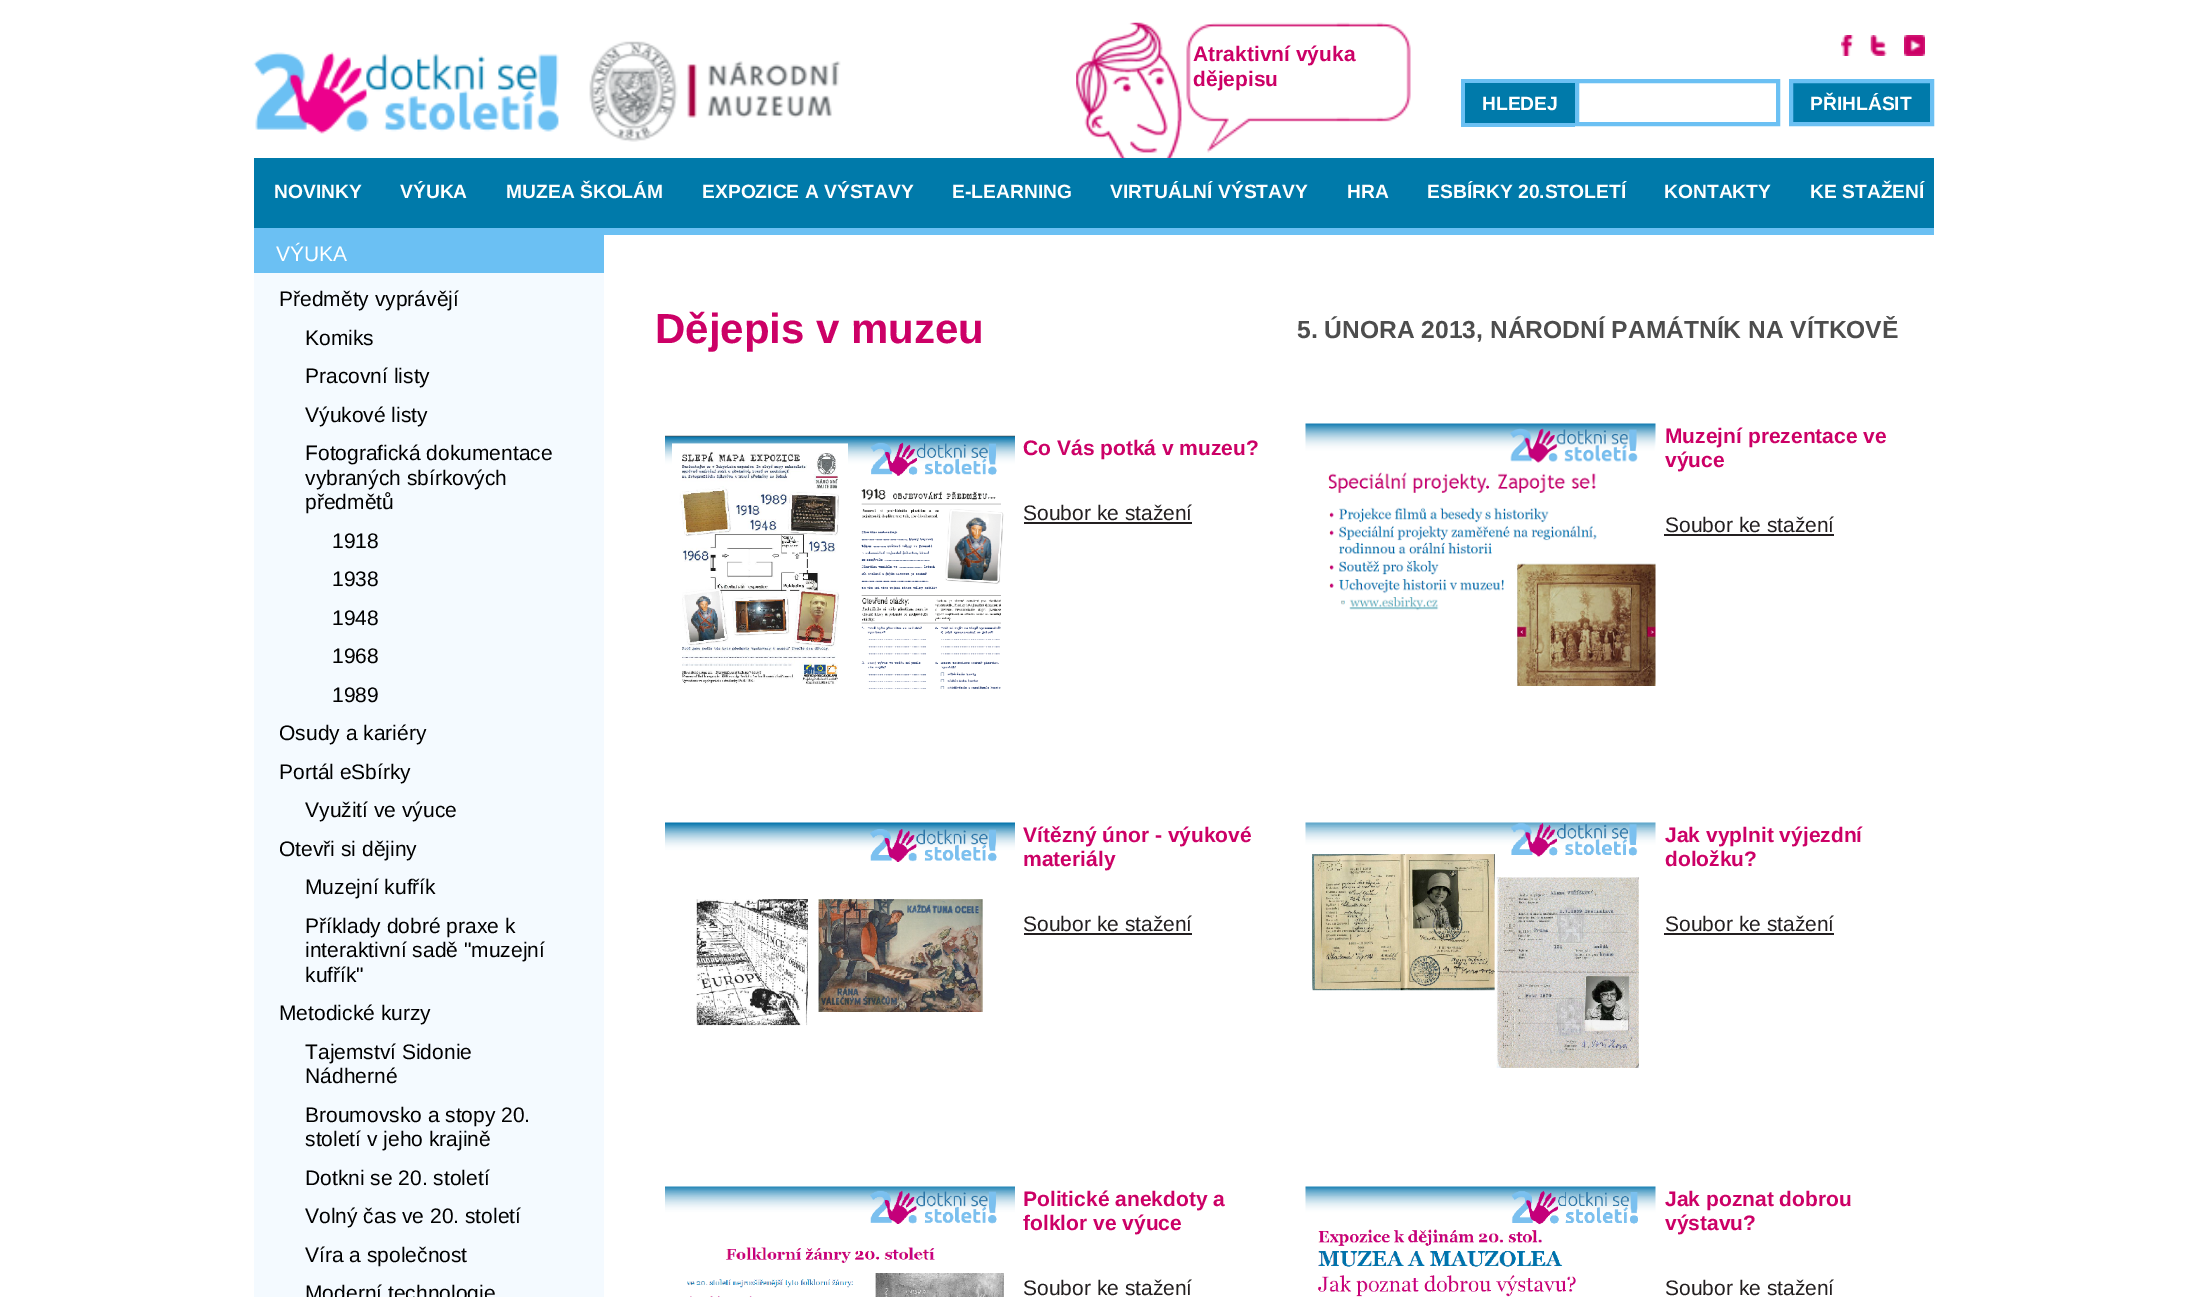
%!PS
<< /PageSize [2185 1297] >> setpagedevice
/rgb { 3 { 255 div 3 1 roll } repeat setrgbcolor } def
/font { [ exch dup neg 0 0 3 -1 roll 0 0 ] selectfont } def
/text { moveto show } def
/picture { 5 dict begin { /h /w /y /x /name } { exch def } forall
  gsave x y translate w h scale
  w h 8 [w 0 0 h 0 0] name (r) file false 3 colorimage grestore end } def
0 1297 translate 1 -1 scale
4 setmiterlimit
255 255 255 rgb
0 0 2185 1297 rectfill
(img_01.rgb) 589 41 252 101 picture
(img_02.rgb) 1076 22 335 136 picture
(img_03.rgb) 1841 35 13 21 picture
(img_04.rgb) 1870 35 17 21 picture
(img_05.rgb) 1904 35 21 21 picture
(img_06.rgb) 253 52 306 82 picture
0 122 170 rgb
1465 83 110 40 rectfill
107 192 243 rgb
1461 79 114 4 rectfill
1461 123 114 4 rectfill
1461 79 4 47 rectfill
4 setlinewidth
1577 81 201 43 rectstroke
0 122 170 rgb
1791 81 moveto 141 0 rlineto 0 43 rlineto -141 0 rlineto closepath gsave fill grestore
107 192 243 rgb
stroke
0 122 170 rgb
254 158 1680 70 rectfill
107 192 243 rgb
254 228 1680 7 rectfill
244 250 255 rgb
254 273 350 1024 rectfill
107 192 243 rgb
254 235 350 38 rectfill
(img_07.rgb) 665 435 350 254 picture
35 31 32 rgb
1024 522 168 2 rectfill
(img_08.rgb) 1305 423 351 263 picture
1664 534 170 2 rectfill
(img_09.rgb) 665 822 350 204 picture
1024 933 168 2 rectfill
(img_10.rgb) 1305 822 351 246 picture
1664 933 170 2 rectfill
(img_11.rgb) 665 1186 350 111 picture
(img_12.rgb) 1305 1186 351 111 picture
/LiberationSans-Bold 21 font
204 0 102 rgb
(Atraktivní výuka) 1193 61 text
(dějepisu) 1193 86 text
/LiberationSans-Bold 19.25 font
255 255 255 rgb
(HLEDEJ) 1482 110 text
(PŘIHLÁSIT) 1810 110 text
(NOVINKY) 274 198 text
(VÝUKA) 400 198 text
(MUZEA ŠKOLÁM) 506 198 text
(EXPOZICE A VÝSTAVY) 702 198 text
(E-LEARNING) 952 198 text
(VIRTUÁLNÍ VÝSTAVY) 1110 198 text
(HRA) 1347 198 text
(ESBÍRKY 20.STOLETÍ) 1427 198 text
(KONTAKTY) 1664 198 text
(KE STAŽENÍ) 1810 198 text
/LiberationSans-Regular 21 font
(VÝUKA) 276 261 text
0 0 0 rgb
(Předměty vyprávějí) 279 306 text
(Komiks) 305 345 text
(Pracovní listy) 305 383 text
(Výukové listy) 305 422 text
(Fotografická dokumentace) 305 460 text
(vybraných sbírkových) 305 485 text
(předmětů) 305 509 text
(1918) 332 548 text
(1938) 332 586 text
(1948) 332 625 text
(1968) 332 663 text
(1989) 332 702 text
(Osudy a kariéry) 279 740 text
(Portál eSbírky) 279 779 text
(Využití ve výuce) 305 817 text
(Otevři si dějiny) 279 856 text
(Muzejní kufřík) 305 894 text
(Příklady dobré praxe k) 305 933 text
(interaktivní sadě "muzejní) 305 957 text
(kufřík") 305 982 text
(Metodické kurzy) 279 1020 text
(Tajemství Sidonie) 305 1059 text
(Nádherné) 305 1083 text
(Broumovsko a stopy 20.) 305 1122 text
(století v jeho krajině) 305 1146 text
(Dotkni se 20. století) 305 1185 text
(Volný čas ve 20. století) 305 1223 text
(Víra a společnost) 305 1262 text
(Moderní technologie) 305 1300 text
/LiberationSans-Bold 42 font
204 0 102 rgb
(Dějepis v muzeu) 655 343 text
/LiberationSans-Bold 24.6 font
77 77 77 rgb
(5. ÚNORA 2013, NÁRODNÍ PAMÁTNÍK NA VÍTKOVĚ) 1297 338 text
/LiberationSans-Bold 21 font
204 0 102 rgb
(Co Vás potká v muzeu?) 1023 455 text
/LiberationSans-Regular 21 font
35 31 32 rgb
(Soubor ke stažení) 1023 520 text
/LiberationSans-Bold 21 font
204 0 102 rgb
(Muzejní prezentace ve) 1665 443 text
(výuce) 1665 467 text
/LiberationSans-Regular 21 font
35 31 32 rgb
(Soubor ke stažení) 1665 532 text
/LiberationSans-Bold 21 font
204 0 102 rgb
(Vítězný únor - výukové) 1023 842 text
(materiály) 1023 866 text
/LiberationSans-Regular 21 font
35 31 32 rgb
(Soubor ke stažení) 1023 931 text
/LiberationSans-Bold 21 font
204 0 102 rgb
(Jak vyplnit výjezdní) 1665 842 text
(doložku?) 1665 866 text
/LiberationSans-Regular 21 font
35 31 32 rgb
(Soubor ke stažení) 1665 931 text
/LiberationSans-Bold 21 font
204 0 102 rgb
(Politické anekdoty a) 1023 1206 text
(folklor ve výuce) 1023 1230 text
/LiberationSans-Regular 21 font
35 31 32 rgb
(Soubor ke stažení) 1023 1295 text
/LiberationSans-Bold 21 font
204 0 102 rgb
(Jak poznat dobrou) 1665 1206 text
(výstavu?) 1665 1230 text
/LiberationSans-Regular 21 font
35 31 32 rgb
(Soubor ke stažení) 1665 1295 text
showpage
